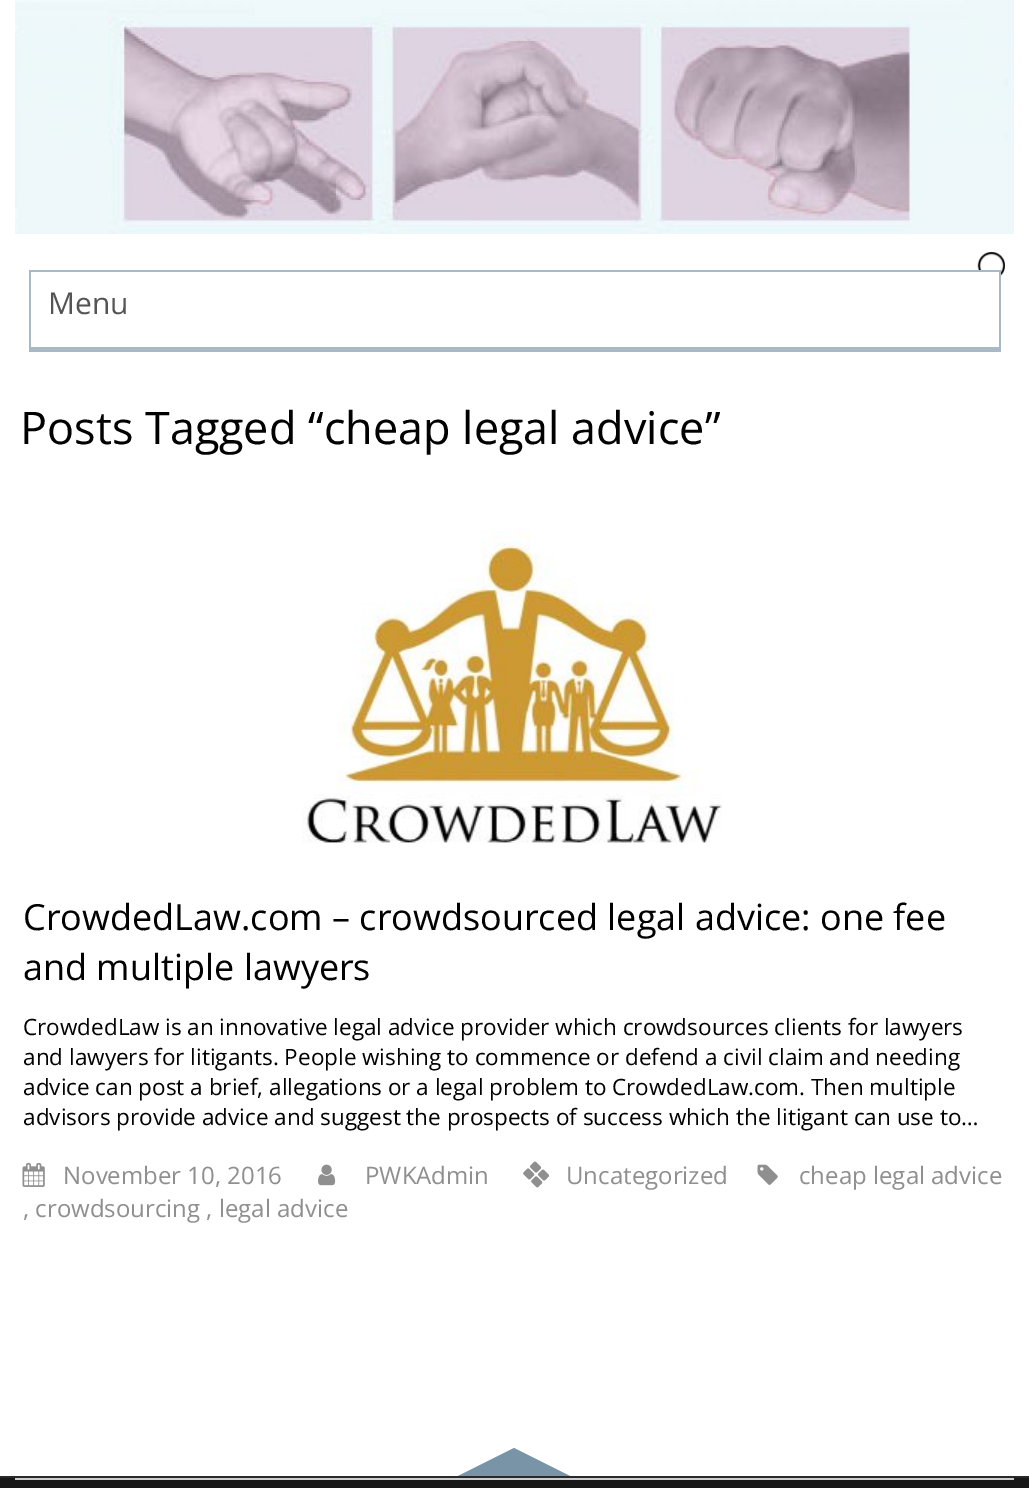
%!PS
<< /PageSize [1029 1488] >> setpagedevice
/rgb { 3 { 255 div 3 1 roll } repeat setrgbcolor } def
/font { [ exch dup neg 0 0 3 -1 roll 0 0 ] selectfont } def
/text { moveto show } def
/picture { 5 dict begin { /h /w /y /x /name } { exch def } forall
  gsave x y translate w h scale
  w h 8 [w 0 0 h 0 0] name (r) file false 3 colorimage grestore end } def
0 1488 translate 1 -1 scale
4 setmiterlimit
255 255 255 rgb
0 0 1029 1488 rectfill
(img_01.rgb) 15 0 999 234 picture
(img_02.rgb) 977 252 28 24 picture
977 272 22 4 rectfill
168 184 197 rgb
29 270 972 2 rectfill
999 270 2 81 rectfill
29 347 972 5 rectfill
29 270 2 81 rectfill
(img_03.rgb) 302 530 420 313 picture
(img_04.rgb) 22 1162 23 25 picture
(img_05.rgb) 757 1164 21 21 picture
(img_06.rgb) 318 1164 18 22 picture
(img_07.rgb) 523 1161 27 27 picture
121 148 167 rgb
574 1478 moveto -120 0 rlineto 60 -30 rlineto closepath fill
23 23 23 rgb
0 1478 1029 10 rectfill
41 41 41 rgb
0 1476 1029 2 rectfill
204 204 204 rgb
15 1478 999 2 rectfill
/OpenSans-Regular 30 font
84 84 84 rgb
(Menu) 48 314 text
/OpenSans-Regular 45 font
0 0 0 rgb
(Posts Tagged “cheap legal advice”) 20 444 text
/OpenSans-Regular 36 font
(CrowdedLaw.com – crowdsourced legal advice: one fee) 23 930 text
(and multiple lawyers) 23 980 text
/OpenSans-Regular 22.5 font
(CrowdedLaw is an innovative legal advice provider which crowdsources clients for lawyers) 23 1035 text
(and lawyers for litigants. People wishing to commence or defend a civil claim and needing) 23 1065 text
(advice can post a brief, allegations or a legal problem to CrowdedLaw.com. Then multiple) 23 1095 text
(advisors provide advice and suggest the prospects of success which the litigant can use to…) 23 1125 text
/OpenSans-Regular 24 font
143 143 143 rgb
(cheap legal advice) 799 1184 text
(, crowdsourcing , legal advice) 23 1217 text
(November 10, 2016) 63 1184 text
(PWKAdmin) 365 1184 text
(Uncategorized) 566 1184 text
showpage
